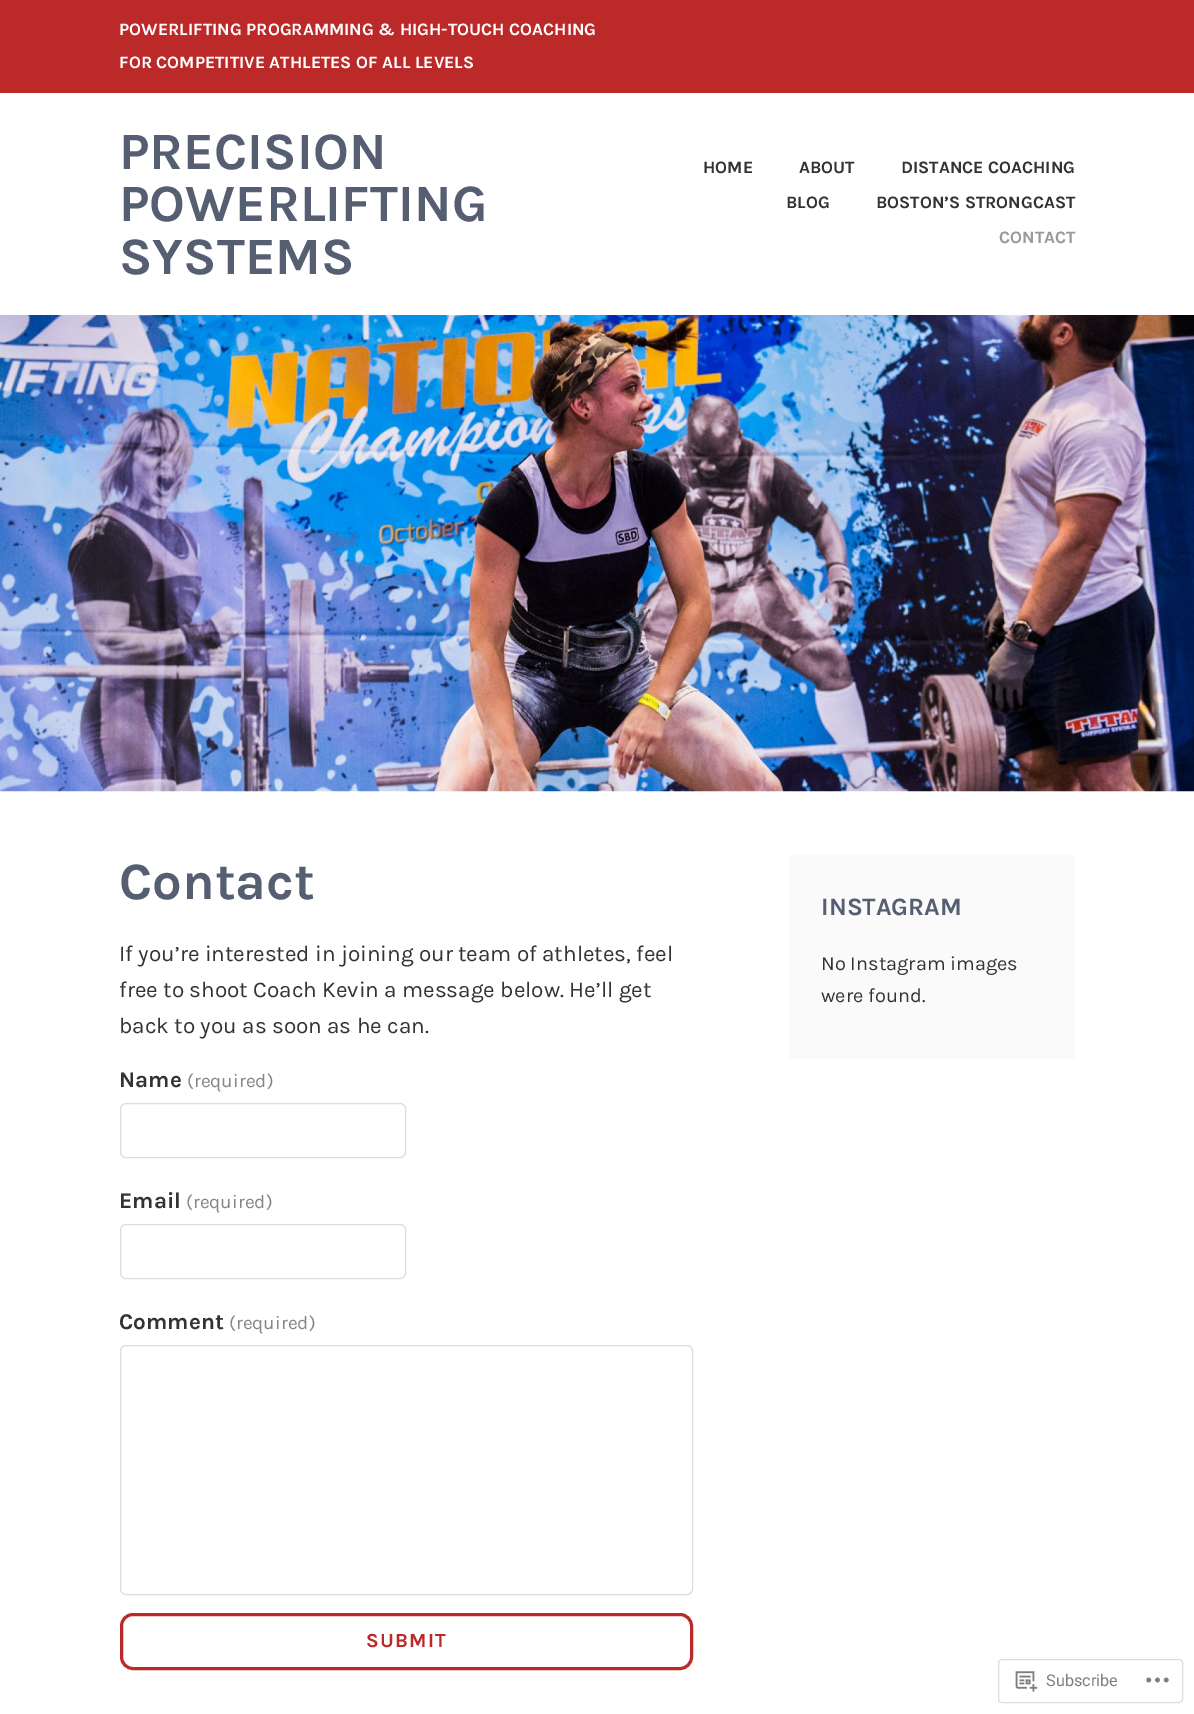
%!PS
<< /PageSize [1194 1714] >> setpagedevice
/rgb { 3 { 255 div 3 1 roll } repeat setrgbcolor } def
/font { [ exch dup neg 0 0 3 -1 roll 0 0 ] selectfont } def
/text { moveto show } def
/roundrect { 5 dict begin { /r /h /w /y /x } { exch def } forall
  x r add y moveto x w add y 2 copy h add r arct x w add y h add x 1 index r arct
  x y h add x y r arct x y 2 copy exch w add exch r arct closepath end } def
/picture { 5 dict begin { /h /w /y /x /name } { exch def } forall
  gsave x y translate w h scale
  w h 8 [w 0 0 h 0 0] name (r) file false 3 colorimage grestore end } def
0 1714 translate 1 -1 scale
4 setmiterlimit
255 255 255 rgb
0 0 1194 1714 rectfill
188 41 41 rgb
0 0 1194 93 rectfill
(img_01.rgb) 0 315 1194 477 picture
221 221 221 rgb
120.5 1103.5 285 54 5.5 roundrect stroke
120.5 1224.5 285 54 5.5 roundrect stroke
120.5 1345.5 572 249 5.5 roundrect stroke
188 41 41 rgb
3 setlinewidth
121.5 1614.5 570 54 11.5 roundrect stroke
250 250 250 rgb
789 855 286 204 rectfill
221 221 223 rgb
1 setlinewidth
998.5 1659.5 184 43 3.5 roundrect stroke
(img_02.rgb) 1015 1671 23 21 picture
(img_03.rgb) 1146 1677 23 6 picture
/Karla-Bold 17.5 font
255 255 255 rgb
(POWERLIFTING PROGRAMMING & HIGH-TOUCH COACHING) 119 35 text
(FOR COMPETITIVE ATHLETES OF ALL LEVELS) 119 68 text
/Karla-Bold 52.5 font
86 94 113 rgb
(PRECISION) 119 169 text
(POWERLIFTING) 119 221 text
(SYSTEMS) 119 274 text
/Karla-Bold 17.5 font
51 51 51 rgb
(HOME) 703 173 text
(ABOUT) 799 173 text
(DISTANCE COACHING) 901 173 text
(BLOG) 786 208 text
(BOSTON’S STRONGCAST) 876 208 text
153 153 153 rgb
(CONTACT) 999 243 text
/Karla-Bold 52.5 font
86 94 113 rgb
(Contact) 119 899 text
/Karla-Regular 22.5 font
51 51 51 rgb
(If you’re interested in joining our team of athletes, feel) 119 961 text
(free to shoot Coach Kevin a message below. He’ll get) 119 997 text
(back to you as soon as he can.) 119 1033 text
/Karla-Bold 22.5 font
(Name) 119 1087 text
/Karla-Regular 19 font
133 133 133 rgb
(\(required\)) 187 1087 text
/Karla-Bold 22.5 font
51 51 51 rgb
(Email) 119 1208 text
/Karla-Regular 19 font
133 133 133 rgb
(\(required\)) 186 1208 text
/Karla-Bold 22.5 font
51 51 51 rgb
(Comment) 119 1329 text
/Karla-Regular 19 font
133 133 133 rgb
(\(required\)) 229 1329 text
/Karla-Bold 20 font
188 41 41 rgb
366 1647 moveto 1.25 0 (SUBMIT) ashow
/Karla-Bold 25 font
86 94 113 rgb
(INSTAGRAM) 821 915 text
/Karla-Regular 20 font
51 51 51 rgb
(No Instagram images) 821 970 text
(were found.) 821 1002 text
/Roboto-Regular 16.25 font
123 127 133 rgb
(Subscribe) 1046 1686 text
showpage
